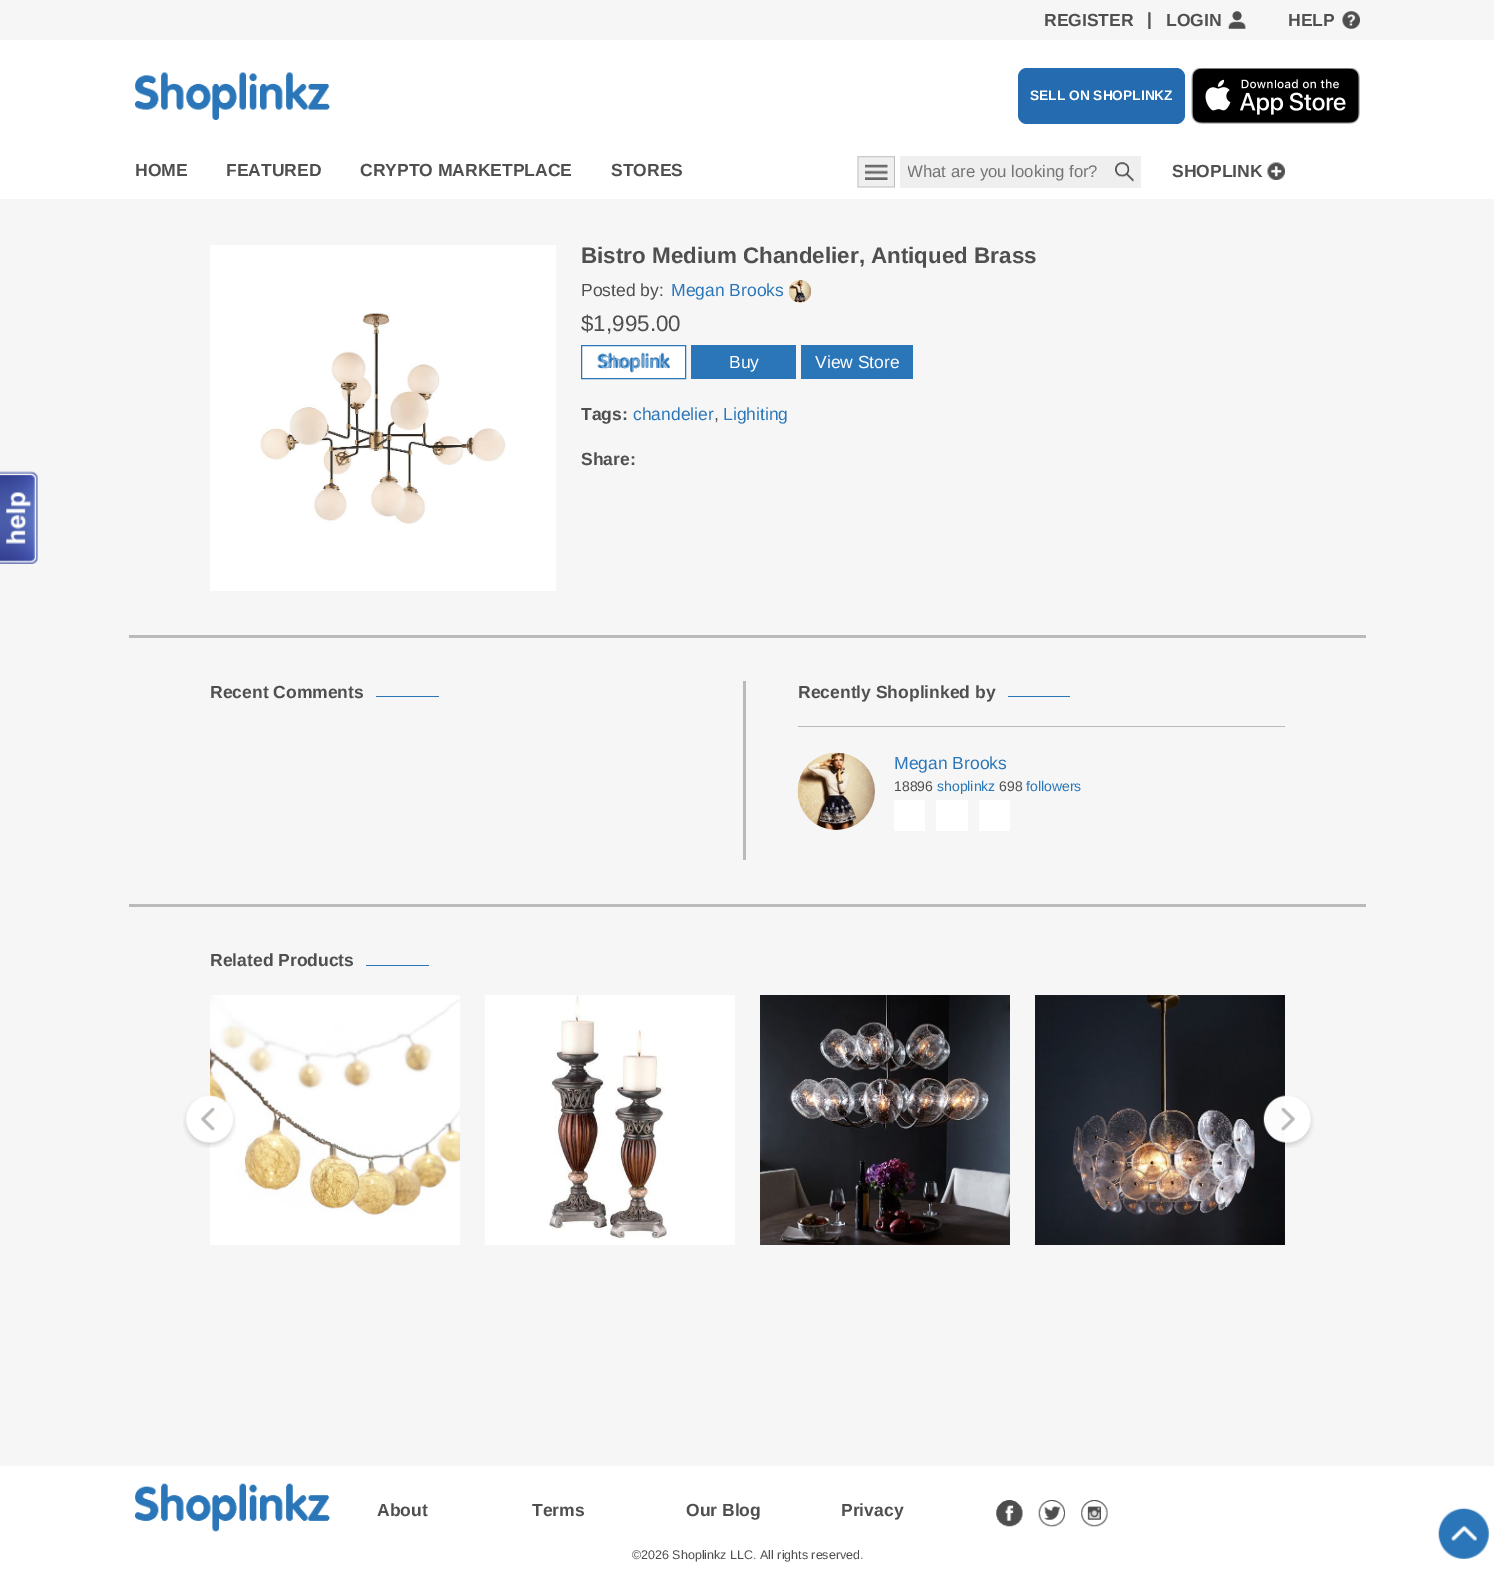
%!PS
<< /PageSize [1494 1571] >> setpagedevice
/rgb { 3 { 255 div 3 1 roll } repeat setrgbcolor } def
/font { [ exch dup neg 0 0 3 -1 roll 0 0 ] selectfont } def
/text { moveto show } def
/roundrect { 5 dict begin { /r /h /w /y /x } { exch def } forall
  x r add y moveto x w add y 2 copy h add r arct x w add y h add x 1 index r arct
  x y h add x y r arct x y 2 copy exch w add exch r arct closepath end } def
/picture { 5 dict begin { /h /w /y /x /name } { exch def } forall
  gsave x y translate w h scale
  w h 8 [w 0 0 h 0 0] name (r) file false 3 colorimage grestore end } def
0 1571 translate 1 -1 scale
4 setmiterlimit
246 246 246 rgb
0 0 1494 1571 rectfill
(img_01.rgb) 1228 11 18 18 picture
(img_02.rgb) 1342 11 18 18 picture
255 255 255 rgb
0 40 1494 159 rectfill
(img_03.rgb) 135 72 195 48 picture
37 107 176 rgb
1018 68 167 56 9 roundrect fill
(img_04.rgb) 1191 68 169 56 picture
(img_05.rgb) 857 156 38 32 picture
239 239 239 rgb
900 156 241 32 rectfill
(img_06.rgb) 1115 162 19 20 picture
(img_07.rgb) 1267 162 18 18 picture
(img_08.rgb) 0 471 38 93 picture
255 255 255 rgb
210 245 346 346 rectfill
(img_09.rgb) 260 313 246 212 picture
(img_10.rgb) 788 280 24 23 picture
582 346 103 32 rectfill
(img_11.rgb) 597 352 73 21 picture
42 118 185 rgb
581.5 345.5 104 33 rectstroke
691 345 105 34 rectfill
801 345 112 34 rectfill
186 186 186 rgb
129 635 1237 3 rectfill
42 118 185 rgb
376 696 63 1 rectfill
186 186 186 rgb
743 681 3 179 rectfill
42 118 185 rgb
1008 696 62 1 rectfill
186 186 186 rgb
798 726 487 1 rectfill
(img_12.rgb) 797 752 78 78 picture
255 255 255 rgb
894 800 31 31 rectfill
936 800 32 31 rectfill
979 800 31 31 rectfill
186 186 186 rgb
129 904 1237 3 rectfill
42 118 185 rgb
366 965 63 1 rectfill
(img_14.rgb) 210 995 250 222 picture
(img_13.rgb) 183 1095 53 53 picture
255 255 255 rgb
210 1217 250 28 rectfill
485 995 250 250 rectfill
(img_15.rgb) 546 995 124 245 picture
(img_16.rgb) 760 995 250 250 picture
(img_17.rgb) 1035 995 250 250 picture
(img_18.rgb) 1263 1095 51 53 picture
0 1466 1494 105 rectfill
(img_19.rgb) 135 1483 195 49 picture
(img_20.rgb) 996 1500 27 27 picture
(img_21.rgb) 1038 1500 27 27 picture
(img_22.rgb) 1081 1500 27 27 picture
(img_23.rgb) 1438 1508 51 51 picture
/LiberationSans-Bold 17.5 font
79 79 79 rgb
(REGISTER) 1044 26 text
(|) 1147 25 text
(LOGIN) 1166 26 text
(HELP) 1288 26 text
/LiberationSans-Bold 13.75 font
255 255 255 rgb
(SELL ON SHOPLINKZ) 1030 100 text
/LiberationSans-Bold 17.5 font
79 79 79 rgb
(HOME) 135 176 text
(FEATURED) 226 176 text
(CRYPTO MARKETPLACE) 360 176 text
(STORES) 611 176 text
gsave
908 163 200 18 rectclip
/LiberationSans-Regular 16.75 font
117 117 117 rgb
(What are you looking for?) 907 177 text
grestore
(SHOPLINK) 1172 177 text
/LiberationSans-Bold 22.4 font
(Bistro Medium Chandelier, Antiqued Brass) 581 263 text
/LiberationSans-Regular 17.5 font
(Posted by:) 581 296 text
42 118 185 rgb
(Megan Brooks) 671 296 text
/LiberationSans-Regular 22.4 font
79 79 79 rgb
($1,995.00) 581 331 text
/LiberationSans-Regular 17.5 font
128 173 213 rgb
(Shoplink) 600 368 text
255 255 255 rgb
(Buy) 729 368 text
(View Store) 815 368 text
/LiberationSans-Bold 17.5 font
79 79 79 rgb
(Tags:) 581 420 text
/LiberationSans-Regular 17.5 font
42 118 185 rgb
(chandelier) 633 420 text
79 79 79 rgb
(,) 714 420 text
42 118 185 rgb
(Lighiting) 723 420 text
/LiberationSans-Bold 17.5 font
79 79 79 rgb
(Share:) 581 465 text
(Recent Comments) 210 698 text
(Recently Shoplinked by) 798 698 text
/LiberationSans-Regular 17.5 font
42 118 185 rgb
(Megan Brooks) 894 769 text
/LiberationSans-Regular 14 font
79 79 79 rgb
(18896) 894 791 text
42 118 185 rgb
(shoplinkz) 937 791 text
79 79 79 rgb
(698) 999 791 text
42 118 185 rgb
(followers) 1026 791 text
/LiberationSans-Bold 17.5 font
79 79 79 rgb
(Related Products) 210 966 text
(About) 377 1516 text
(Terms) 532 1516 text
(Our Blog) 686 1516 text
(Privacy) 841 1516 text
/LiberationSans-Regular 12.5 font
(©2026 Shoplinkz LLC. All rights reserved.) 632 1559 text
showpage
